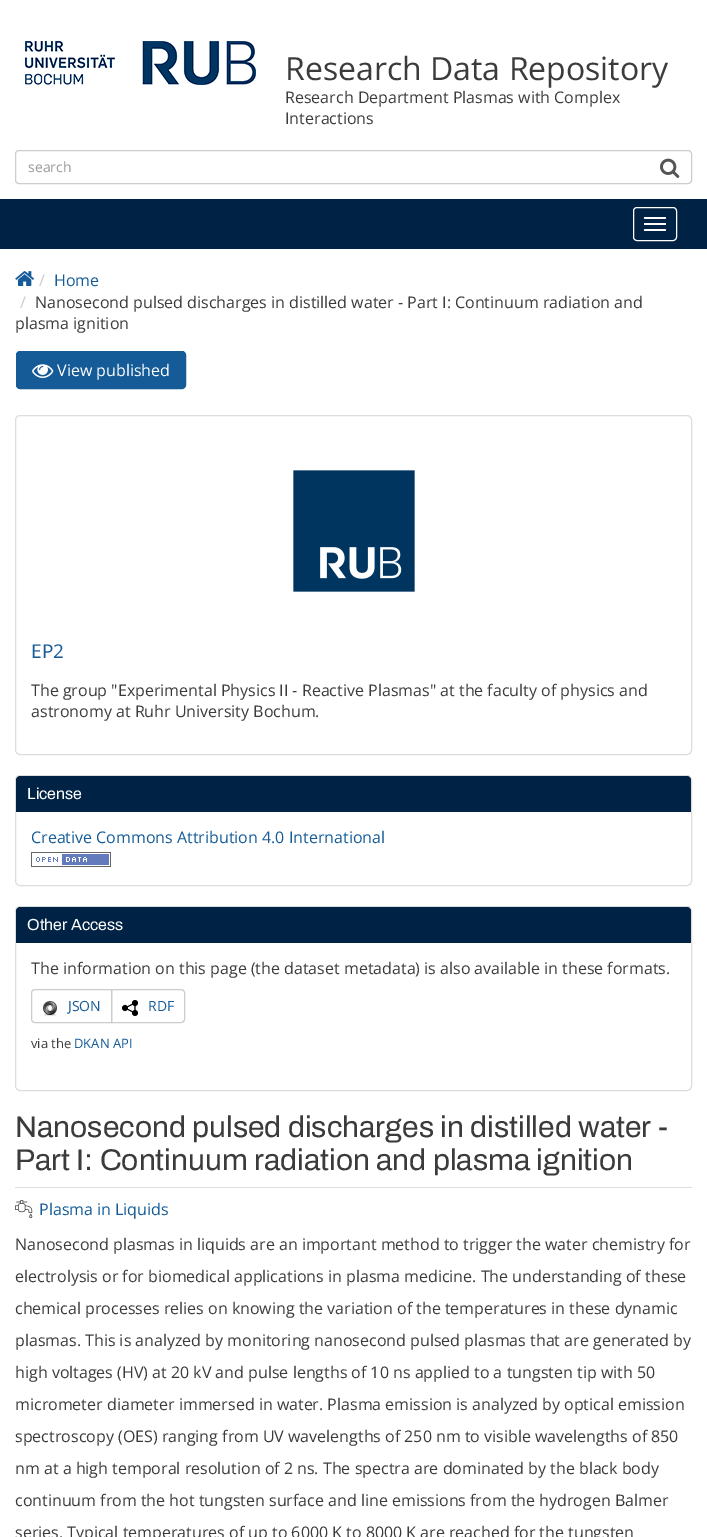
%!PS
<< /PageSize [707 1537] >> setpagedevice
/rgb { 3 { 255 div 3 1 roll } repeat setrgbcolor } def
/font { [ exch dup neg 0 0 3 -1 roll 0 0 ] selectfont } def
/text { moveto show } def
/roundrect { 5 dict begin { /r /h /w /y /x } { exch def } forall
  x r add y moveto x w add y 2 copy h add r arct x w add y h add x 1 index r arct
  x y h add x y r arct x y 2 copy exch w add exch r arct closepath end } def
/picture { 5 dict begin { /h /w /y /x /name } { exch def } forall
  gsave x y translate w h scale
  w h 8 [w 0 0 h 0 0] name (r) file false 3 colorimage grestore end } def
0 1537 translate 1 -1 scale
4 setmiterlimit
255 255 255 rgb
0 0 707 1537 rectfill
(img_01.rgb) 25 41 231 44 picture
205 205 205 rgb
15.5 150.5 676 33 3.5 roundrect stroke
(img_02.rgb) 660 158 20 20 picture
0 34 69 rgb
0 199 707 50 rectfill
255 255 255 rgb
633.5 207.5 43 33 3.5 roundrect stroke
644 217 22 2 1 roundrect fill
644 223 22 2 1 roundrect fill
644 229 22 2 1 roundrect fill
(img_03.rgb) 15 271 19 15 picture
20 91 152 rgb
16.5 351.5 169 37 3.5 roundrect gsave fill grestore
stroke
(img_04.rgb) 32 364 22 14 picture
221 221 221 rgb
15.5 415.5 676 339 4.5 roundrect stroke
(img_05.rgb) 293 470 122 122 picture
15.5 775.5 676 110 4.5 roundrect stroke
0 34 69 rgb
21 776 moveto 665 0 rlineto 3 0 5 2 5 5 rcurveto 0 31 rlineto -675 0 rlineto 0 -31 rlineto 0 -3 2 -5 5 -5 rcurveto closepath fill
21 776 moveto 665 0 rlineto 3 0 5 2 5 5 rcurveto 0 31 rlineto -675 0 rlineto 0 -31 rlineto 0 -3 2 -5 5 -5 rcurveto closepath 21 777 moveto 665 0 rlineto 2 0 4 2 4 4 rcurveto 0 31 rlineto -673 0 rlineto 0 -31 rlineto 0 -2 2 -4 4 -4 rcurveto closepath eofill
(img_06.rgb) 31 852 80 15 picture
221 221 221 rgb
15.5 906.5 676 184 4.5 roundrect stroke
0 34 69 rgb
21 907 moveto 665 0 rlineto 3 0 5 2 5 5 rcurveto 0 31 rlineto -675 0 rlineto 0 -31 rlineto 0 -3 2 -5 5 -5 rcurveto closepath fill
21 907 moveto 665 0 rlineto 3 0 5 2 5 5 rcurveto 0 31 rlineto -675 0 rlineto 0 -31 rlineto 0 -3 2 -5 5 -5 rcurveto closepath 21 908 moveto 665 0 rlineto 2 0 4 2 4 4 rcurveto 0 31 rlineto -673 0 rlineto 0 -31 rlineto 0 -2 2 -4 4 -4 rcurveto closepath eofill
(img_07.rgb) 43 1001 14 15 picture
204 204 204 rgb
35 989.5 moveto 76.5 0 rlineto 0 33 rlineto -76.5 0 rlineto -2 0 -3.5 -1.5 -3.5 -3.5 rcurveto 0 -26 rlineto 0 -2 1.5 -3.5 3.5 -3.5 rcurveto closepath stroke
(img_08.rgb) 122 1000 16 16 picture
111.5 989.5 moveto 69.5 0 rlineto 2 0 3.5 1.5 3.5 3.5 rcurveto 0 26 rlineto 0 2 -1.5 3.5 -3.5 3.5 rcurveto -69.5 0 rlineto closepath stroke
221 221 221 rgb
15 1187 677 1 rectfill
(img_09.rgb) 15 1200 18 19 picture
/OpenSans-Regular 32 font
59 59 59 rgb
(Research Data Repository) 285 80 text
/OpenSans-Regular 16 font
(Research Department Plasmas with Complex) 285 103 text
(Interactions) 285 124 text
/OpenSans-Regular 14 font
153 153 153 rgb
(search) 28 172 text
/OpenSans-Regular 16 font
204 204 204 rgb
(/) 39 286 text
20 91 152 rgb
(Home) 54 286 text
204 204 204 rgb
(/) 20 308 text
59 59 59 rgb
(Nanosecond pulsed discharges in distilled water - Part I: Continuum radiation and) 35 308 text
(plasma ignition) 15 329 text
255 255 255 rgb
(View published) 57 376 text
/OpenSans-Regular 19 font
20 91 152 rgb
(EP2) 31 658 text
/OpenSans-Regular 16 font
59 59 59 rgb
(The group "Experimental Physics II - Reactive Plasmas" at the faculty of physics and) 31 696 text
(astronomy at Ruhr University Bochum.) 31 717 text
/Archivo-SemiBold 16 font
255 255 255 rgb
(License) 27 799 text
/OpenSans-Regular 16 font
20 91 152 rgb
(Creative Commons Attribution 4.0 International) 31 843 text
/Archivo-SemiBold 16 font
255 255 255 rgb
(Other Access) 27 930 text
/OpenSans-Regular 16 font
59 59 59 rgb
(The information on this page \(the dataset metadata\) is also available in these formats.) 31 974 text
/OpenSans-Regular 14 font
20 91 152 rgb
(JSON) 68 1011 text
(RDF) 148 1011 text
/OpenSans-Regular 13 font
59 59 59 rgb
(via the) 31 1048 text
20 91 152 rgb
(DKAN API) 74 1048 text
/Archivo-SemiBold 30 font
59 59 59 rgb
(Nanosecond pulsed discharges in distilled water -) 15 1137 text
(Part I: Continuum radiation and plasma ignition) 15 1170 text
/OpenSans-Regular 16 font
20 91 152 rgb
(Plasma in Liquids) 39 1215 text
59 59 59 rgb
(Nanosecond plasmas in liquids are an important method to trigger the water chemistry for) 15 1250 text
(electrolysis or for biomedical applications in plasma medicine. The understanding of these) 15 1282 text
(chemical processes relies on knowing the variation of the temperatures in these dynamic) 15 1314 text
(plasmas. This is analyzed by monitoring nanosecond pulsed plasmas that are generated by) 15 1346 text
(high voltages \(HV\) at 20 kV and pulse lengths of 10 ns applied to a tungsten tip with 50) 15 1378 text
(micrometer diameter immersed in water. Plasma emission is analyzed by optical emission) 15 1410 text
(spectroscopy \(OES\) ranging from UV wavelengths of 250 nm to visible wavelengths of 850) 15 1442 text
(nm at a high temporal resolution of 2 ns. The spectra are dominated by the black body) 15 1474 text
(continuum from the hot tungsten surface and line emissions from the hydrogen Balmer) 15 1506 text
(series. Typical temperatures of up to 6000 K to 8000 K are reached for the tungsten) 15 1538 text
showpage
